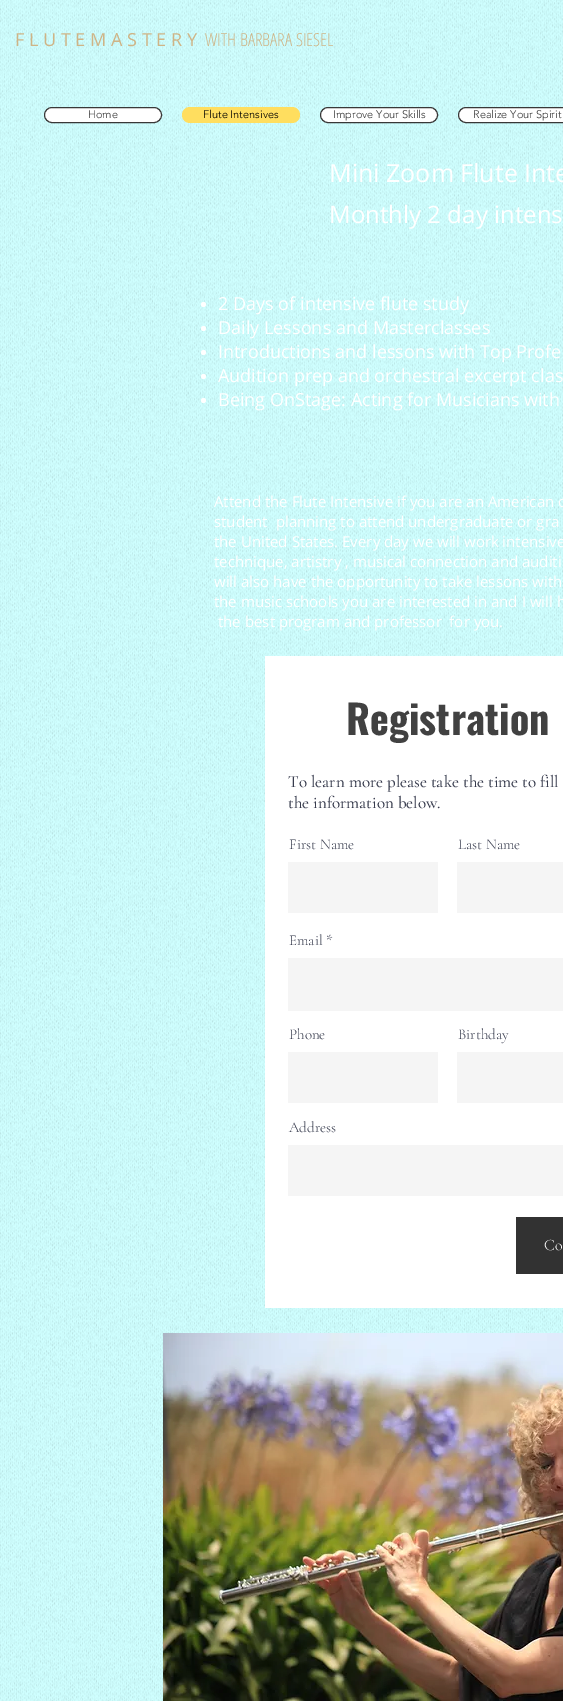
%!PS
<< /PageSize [563 1701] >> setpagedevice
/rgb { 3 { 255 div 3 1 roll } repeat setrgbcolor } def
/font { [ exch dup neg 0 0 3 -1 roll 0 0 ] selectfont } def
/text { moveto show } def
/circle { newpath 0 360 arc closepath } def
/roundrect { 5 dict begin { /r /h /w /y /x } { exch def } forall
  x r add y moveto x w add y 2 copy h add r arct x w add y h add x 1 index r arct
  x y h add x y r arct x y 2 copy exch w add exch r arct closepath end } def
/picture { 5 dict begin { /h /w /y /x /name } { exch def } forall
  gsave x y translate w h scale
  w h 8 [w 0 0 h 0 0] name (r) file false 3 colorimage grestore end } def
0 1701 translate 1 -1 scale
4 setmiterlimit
207 255 255 rgb
0 0 563 1701 rectfill
(img_01.rgb) 0 0 563 1701 picture
255 255 255 rgb
44.5 107.5 117 15 7.5 roundrect gsave fill grestore
56 56 56 rgb
stroke
255 222 95 rgb
182 107 118 16 8 roundrect fill
255 255 255 rgb
320.5 107.5 117 15 7.5 roundrect gsave fill grestore
56 56 56 rgb
stroke
255 255 255 rgb
458.5 107.5 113 15 7.5 roundrect gsave fill grestore
56 56 56 rgb
stroke
255 255 255 rgb
203.5 304.5 2.5 circle fill
203.5 328.5 2.5 circle fill
203.5 352.5 2.5 circle fill
203.5 376.5 2.5 circle fill
203.5 400.5 2.5 circle fill
265 656 298 652 rectfill
245 245 245 rgb
288 862 150 51 rectfill
457 862 106 51 rectfill
288 958 275 53 rectfill
288 1052 150 51 rectfill
457 1052 106 51 rectfill
288 1145 275 51 rectfill
50 50 50 rgb
516 1217 47 57 rectfill
(img_02.rgb) 163 1333 400 368 picture
/OpenSans-Regular 18 font
207 180 134 rgb
(F L U T E M A S T E R Y) 15 46 text
/OpenSansCondensed-Light 18 font
(WITH BARBARA SIESEL) 205 46 text
/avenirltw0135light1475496-Light 11 font
56 56 56 rgb
(Home) 88 118 text
0 0 0 rgb
(Flute Intensives) 203 118 text
56 56 56 rgb
(Improve Your Skills) 333 118 text
(Realize Your Spirit) 473 118 text
/OpenSans-Regular 25 font
255 255 255 rgb
(Mini Zoom Flute Inte) 329 182 text
/OpenSans-Regular 24 font
(Monthly 2 day intens) 329 223 text
/OpenSans-Regular 18 font
(2 Days of intensive flute study) 218 310 text
(Daily Lessons and Masterclasses) 218 334 text
(Introductions and lessons with Top Profe) 218 358 text
(Audition prep and orchestral excerpt clas) 218 382 text
(Being OnStage: Acting for Musicians with) 218 406 text
/OpenSans-Regular 15 font
(Attend the Flute Intensive if you are an American o) 214 507 text
(student  planning to attend undergraduate or gra) 214 527 text
(the United States. Every day we will work intensive) 214 547 text
(technique, artistry , musical connection and auditi) 214 567 text
(will also have the opportunity to take lessons with) 214 587 text
(the music schools you are interested in and I will h) 214 607 text
(the best program and professor  for you.) 218 627 text
/Oswald-Bold 40 font
65 65 65 rgb
(Registration) 346 735 text
/CormorantGaramond-Medium 17 font
55 59 77 rgb
(To learn more please take the time to fill) 288 787 text
(the information below.) 288 808 text
/CormorantGaramond-Light 15 font
(First Name) 289 849 text
(Last Name) 458 849 text
(Email *) 289 945 text
(Phone) 289 1039 text
(Birthday) 458 1039 text
(Address) 289 1132 text
/CormorantGaramond-Light 16 font
255 255 255 rgb
(Co) 544 1250 text
showpage
